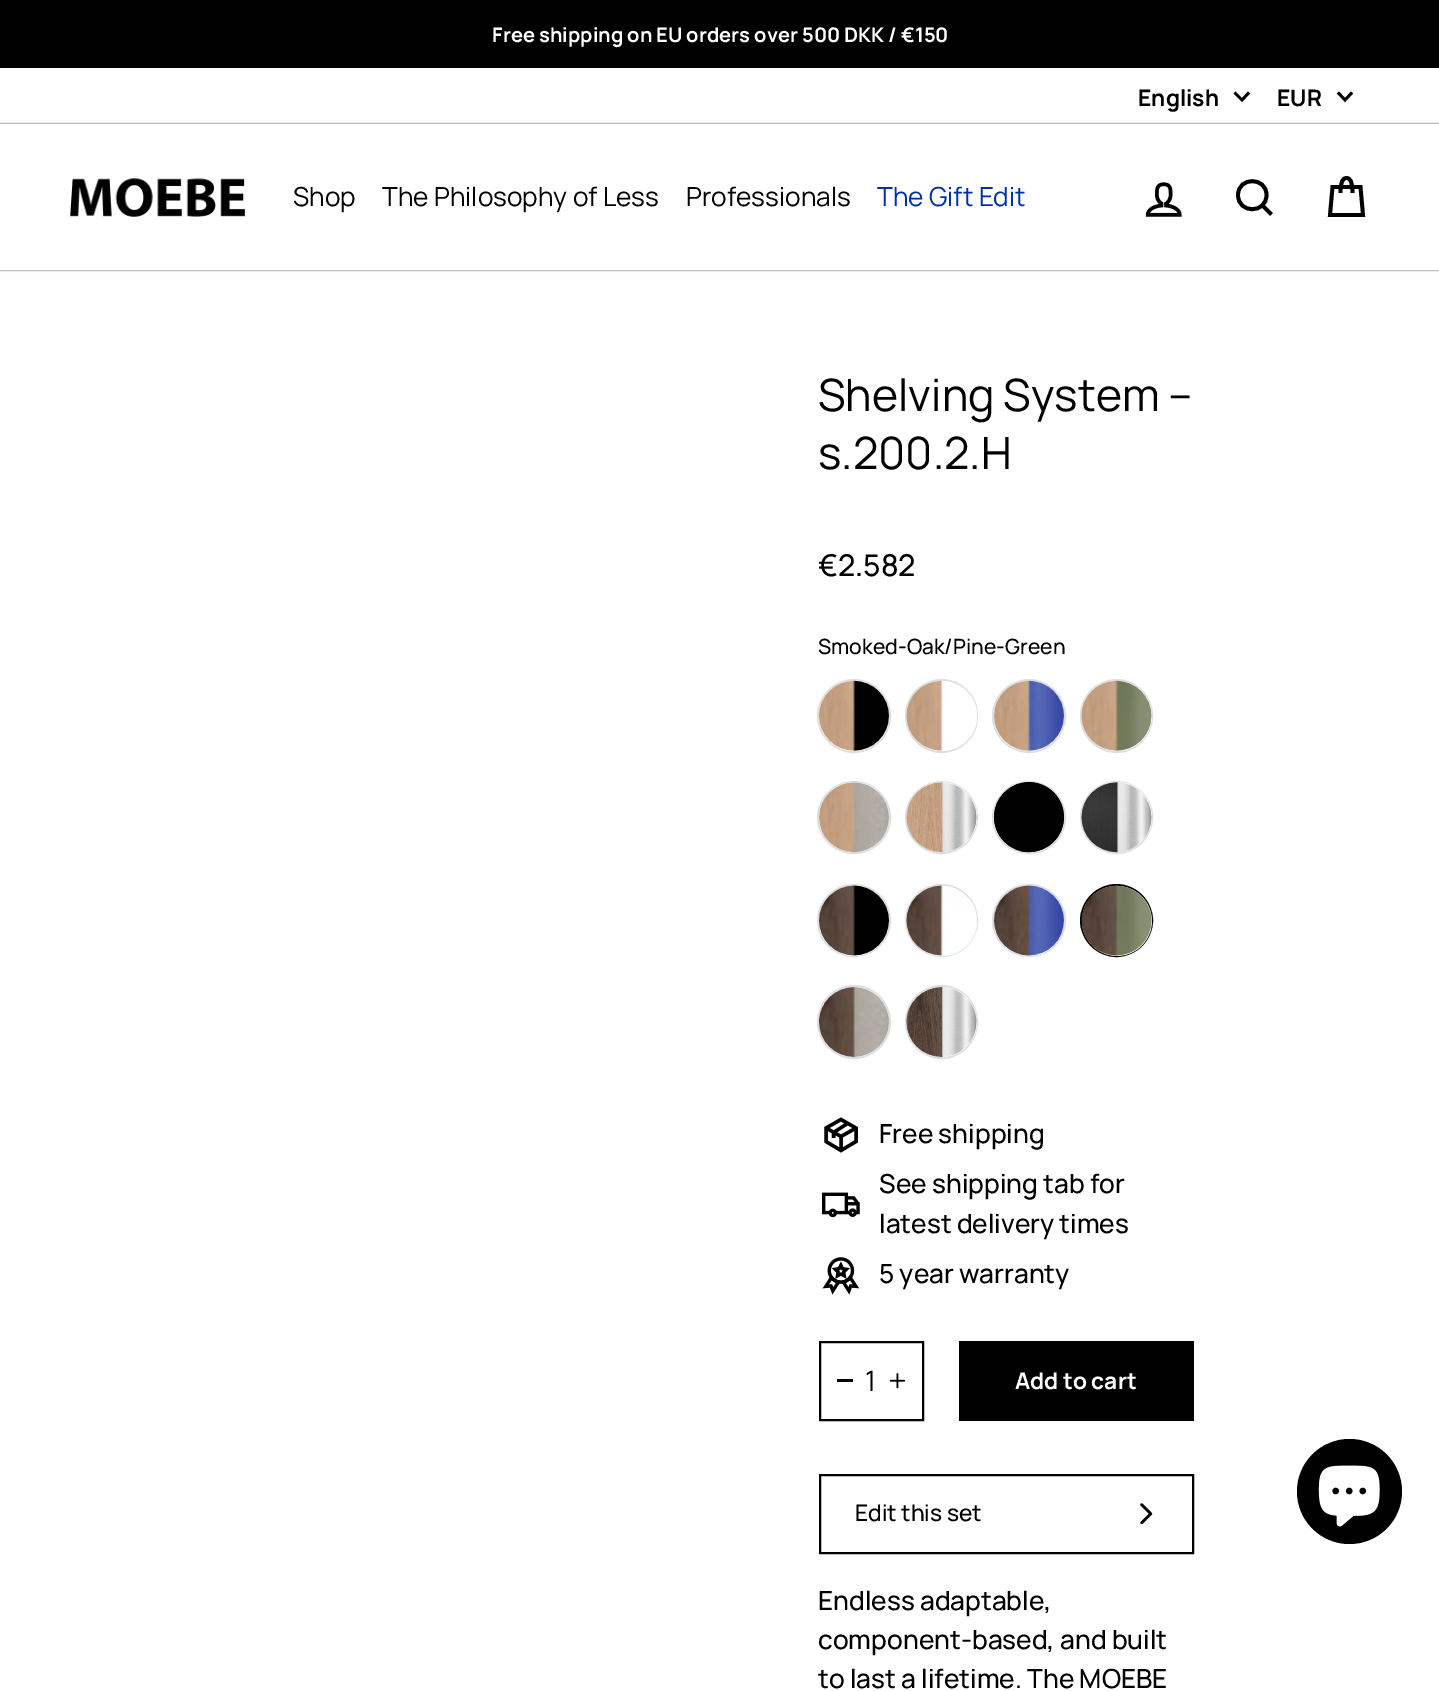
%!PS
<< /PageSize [1439 1691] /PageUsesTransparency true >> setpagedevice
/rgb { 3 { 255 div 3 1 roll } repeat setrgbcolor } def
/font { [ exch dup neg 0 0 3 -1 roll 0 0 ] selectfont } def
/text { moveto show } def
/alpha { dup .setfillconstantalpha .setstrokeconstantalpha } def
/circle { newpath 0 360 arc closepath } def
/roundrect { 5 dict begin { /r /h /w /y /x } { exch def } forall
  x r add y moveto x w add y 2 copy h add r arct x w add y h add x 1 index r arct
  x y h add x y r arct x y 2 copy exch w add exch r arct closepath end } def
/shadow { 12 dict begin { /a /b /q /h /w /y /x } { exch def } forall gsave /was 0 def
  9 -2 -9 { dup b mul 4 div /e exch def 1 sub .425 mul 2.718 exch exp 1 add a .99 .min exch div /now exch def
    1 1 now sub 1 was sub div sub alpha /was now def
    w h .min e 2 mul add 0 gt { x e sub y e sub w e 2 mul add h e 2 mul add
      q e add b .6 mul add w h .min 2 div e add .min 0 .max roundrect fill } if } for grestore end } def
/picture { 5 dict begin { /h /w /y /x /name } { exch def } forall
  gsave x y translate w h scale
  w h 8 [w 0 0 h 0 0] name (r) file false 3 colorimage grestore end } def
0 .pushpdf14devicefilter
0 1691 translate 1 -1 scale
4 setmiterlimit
255 255 255 rgb
0 0 1439 1691 rectfill
0 0 0 rgb
0 0 1439 68 rectfill
2.8 setlinewidth
1234.5 92.5 moveto 7.5 7.5 rlineto 7 -7.5 rlineto stroke
1338 92.5 moveto 7 7.5 rlineto 7 -7.5 rlineto stroke
0 124 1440 146 0 1 0.8 shadow
255 255 255 rgb
0 124 1439 146 rectfill
(img_01.rgb) 70 178 175 39 picture
(img_02.rgb) 1145 182 37 35 picture
0 0 0 rgb
3.8 setlinewidth
1266.5 195 moveto 0 19 -28.5 19 -28.5 0 rcurveto 0 -18.5 28.5 -18.5 28.5 0 rcurveto closepath 1271.5 214.5 moveto -9 -9 rlineto stroke
1340.5 193 moveto 0 -12 2.5 -15 6 -15 rcurveto 3.5 0 6 3 6 15 rcurveto 1332.5 187 moveto 28 0 rlineto 2.5 28 rlineto -33 0 rlineto closepath stroke
221 222 224 rgb
2 setlinewidth
854 716 36 circle stroke
255 255 255 rgb
854 716 35 circle fill
(img_03.rgb) 819 680 70 71 picture
221 222 224 rgb
906 680 71 72 35.5 roundrect stroke
255 255 255 rgb
942 716 35 circle fill
(img_04.rgb) 906 680 47 71 picture
221 222 224 rgb
1029 716 36 circle stroke
255 255 255 rgb
1029 716 35 circle fill
(img_05.rgb) 994 680 70 71 picture
221 222 224 rgb
1081 680 71 72 35.5 roundrect stroke
255 255 255 rgb
1117 716 35 circle fill
(img_06.rgb) 1081 680 71 71 picture
221 222 224 rgb
818 782 72 71 35.5 roundrect stroke
255 255 255 rgb
854 817 35 circle fill
(img_07.rgb) 819 782 70 71 picture
221 222 224 rgb
941.5 817.5 35.5 circle stroke
255 255 255 rgb
942 817 35 circle fill
(img_08.rgb) 906 782 71 71 picture
221 222 224 rgb
993 782 72 71 35.5 roundrect stroke
0 0 0 rgb
1029 817 35 circle fill
(img_09.rgb) 993 782 71 71 picture
221 222 224 rgb
1116.5 817.5 35.5 circle stroke
255 255 255 rgb
1117 817 35 circle fill
(img_10.rgb) 1081 782 71 71 picture
221 222 224 rgb
818 885 72 71 35.5 roundrect stroke
255 255 255 rgb
854 921 35 circle fill
(img_11.rgb) 819 885 71 71 picture
221 222 224 rgb
941.5 920.5 35.5 circle stroke
255 255 255 rgb
942 921 35 circle fill
(img_12.rgb) 906 885 66 71 picture
221 222 224 rgb
993 885 72 71 35.5 roundrect stroke
255 255 255 rgb
1029 921 35 circle fill
(img_13.rgb) 993 885 72 71 picture
0 0 0 rgb
1116.5 920.5 35.5 circle stroke
255 255 255 rgb
1117 921 35 circle fill
(img_14.rgb) 1081 885 71 71 picture
221 222 224 rgb
854 1022 36 circle stroke
255 255 255 rgb
854 1022 35 circle fill
(img_15.rgb) 819 987 70 70 picture
221 222 224 rgb
906 986 71 72 35.5 roundrect stroke
255 255 255 rgb
942 1022 35 circle fill
(img_16.rgb) 906 987 71 70 picture
0 0 0 rgb
3.4 setlinewidth
841 1150.5 moveto -15 -9 rlineto 0 -13.5 rlineto 15 -8.5 rlineto 15 8.5 rlineto 0 13.5 rlineto closepath 841 1150.5 moveto 0 -14 rlineto 15 -8.5 rlineto 841 1136.5 moveto -15 -8.5 rlineto 847.5 1123.5 moveto -14 9 rlineto 0 5.5 rlineto stroke
(img_17.rgb) 822 1192 38 26 picture
(img_18.rgb) 822 1257 38 38 picture
2 setlinewidth
820 1342 103 78 rectstroke
837 1379 16 3 rectfill
(img_19.rgb) 889 1373 17 16 picture
959 1341 235 80 rectfill
820 1475 373 78 rectstroke
(img_20.rgb) 1140 1503 13 21 picture
1349.5 1491.5 52.5 circle fill
(img_21.rgb) 1318 1465 62 62 picture
/Manrope-Bold 20.1 font
255 255 255 rgb
(Free shipping on EU orders over 500 DKK / €150) 492 42 text
/Manrope-Bold 22.75 font
0 0 0 rgb
(English) 1138 106 text
(EUR) 1277 106 text
/Manrope-Regular 26.25 font
(Shop) 293 206 text
(The Philosophy of Less) 382 206 text
(Professionals) 686 206 text
0 47 167 rgb
(The Gift Edit) 877 206 text
/Manrope-Regular 44.6 font
0 0 0 rgb
(Shelving System –) 818 411 text
(s.200.2.H) 818 469 text
/Manrope-Medium 30 font
(€2.582) 818 576 text
/Manrope-Medium 21 font
(Smoked-Oak/Pine-Green) 818 654 text
/Manrope-Medium 26.25 font
(Free shipping) 879 1143 text
(See shipping tab for) 879 1193 text
(latest delivery times) 879 1233 text
(5 year warranty) 879 1283 text
/Manrope-Regular 28 font
(1) 865 1391 text
/Manrope-Bold 22.75 font
255 255 255 rgb
(Add to cart) 1015 1389 text
/Manrope-Medium 22.75 font
0 0 0 rgb
(Edit this set) 855 1521 text
/Manrope-Medium 26.25 font
(Endless adaptable,) 818 1610 text
(component-based, and built) 818 1649 text
(to last a lifetime. The MOEBE) 818 1688 text
.poppdf14devicefilter showpage
